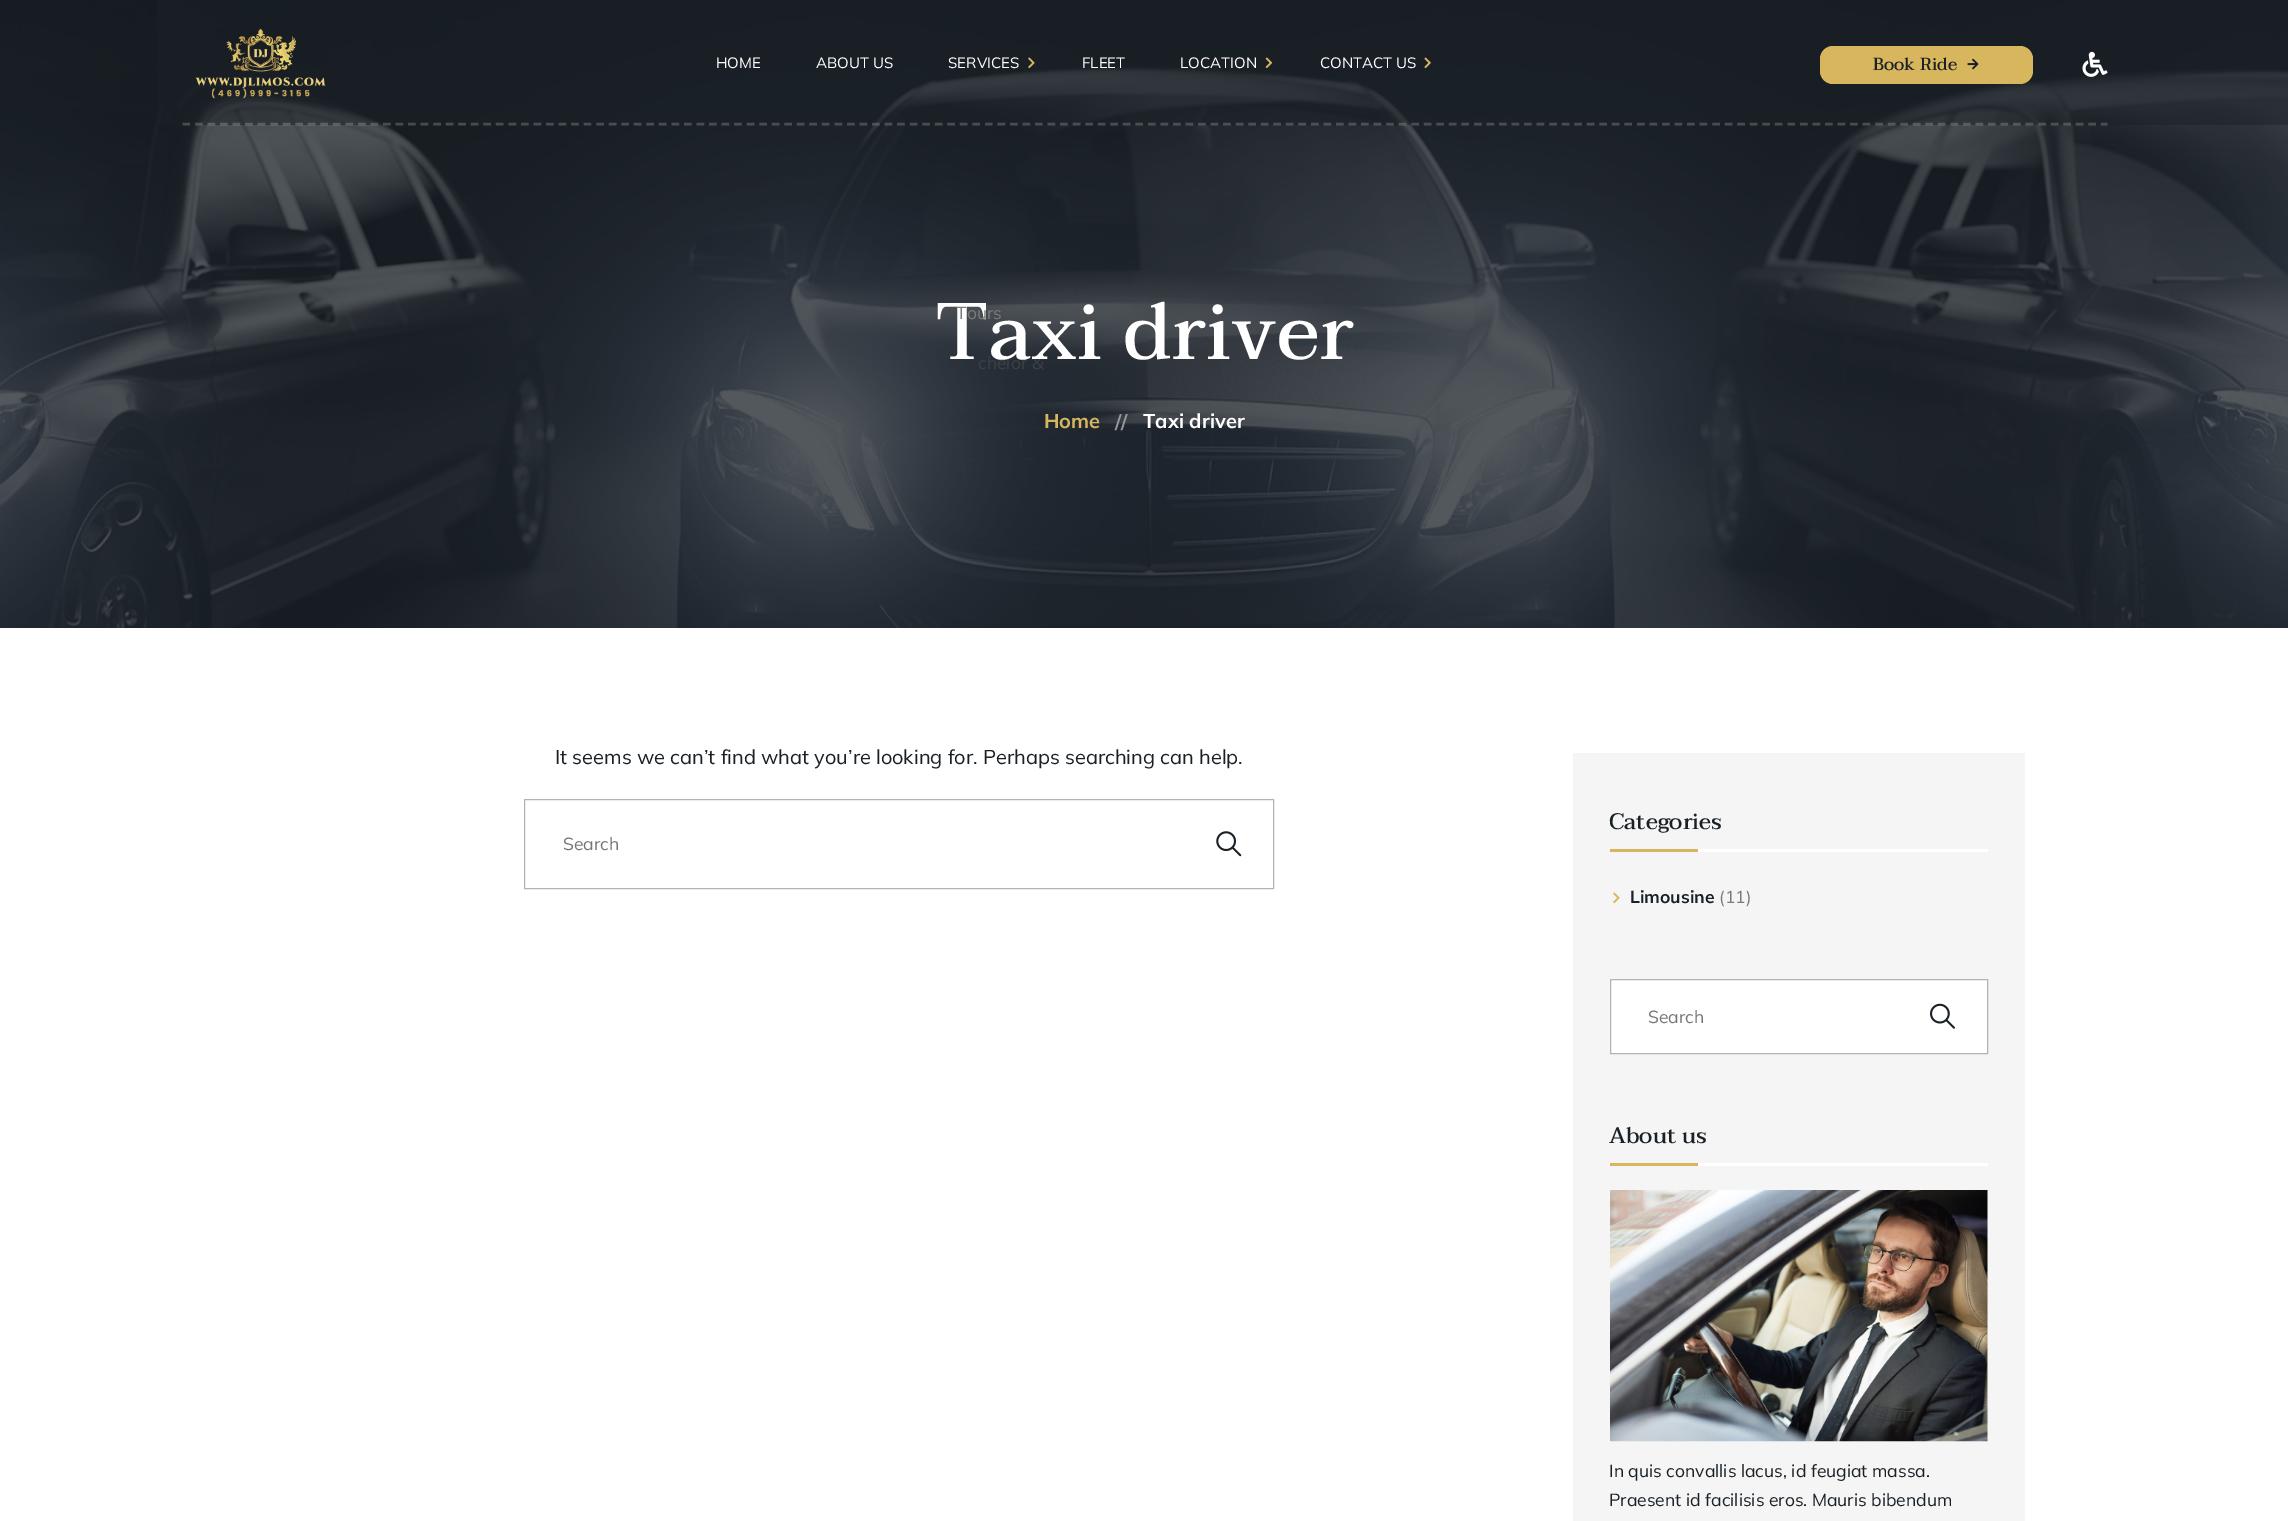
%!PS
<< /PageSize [2288 1521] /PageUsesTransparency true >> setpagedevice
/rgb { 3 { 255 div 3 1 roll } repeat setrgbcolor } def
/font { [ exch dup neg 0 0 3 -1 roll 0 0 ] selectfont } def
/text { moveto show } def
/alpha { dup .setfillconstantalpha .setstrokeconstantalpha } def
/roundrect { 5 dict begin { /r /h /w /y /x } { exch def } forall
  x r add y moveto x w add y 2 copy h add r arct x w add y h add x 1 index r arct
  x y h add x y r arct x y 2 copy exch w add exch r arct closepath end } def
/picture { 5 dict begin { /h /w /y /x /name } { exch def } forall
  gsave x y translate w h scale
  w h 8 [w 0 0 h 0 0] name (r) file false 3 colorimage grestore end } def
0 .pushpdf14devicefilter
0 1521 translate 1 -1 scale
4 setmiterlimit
255 255 255 rgb
0 0 2288 1521 rectfill
(img_07.rgb) 0 0 2288 628 picture
0.5 alpha
25 32 38 rgb
157 0 2131 125 rectfill
1 alpha
(img_01.rgb) 195 28 131 71 picture
(img_02.rgb) 1028 57 7 12 picture
(img_03.rgb) 1265 57 8 12 picture
(img_04.rgb) 1424 57 7 12 picture
215 182 93 rgb
1820 46 213 38 13 roundrect fill
(img_05.rgb) 1967 58 12 12 picture
(img_06.rgb) 2082 51 26 26 picture
0.2 alpha
255 255 255 rgb
2.5 setlinewidth
[7.5 5.04] 0 setdash
182.5 124 moveto 1925 0 rlineto stroke
1 alpha
179 179 179 rgb
1 setlinewidth
[] 0 setdash
524.5 799.5 749 89 rectstroke
(img_08.rgb) 1216 831 26 26 picture
245 245 245 rgb
1573 753 452 768 rectfill
215 182 93 rgb
1610 849 88 3 rectfill
255 255 255 rgb
1698 849 290 3 rectfill
(img_09.rgb) 1613 892 7 12 picture
1610.5 979.5 moveto 377 0 rlineto 0 74 rlineto -377 0 rlineto closepath gsave fill grestore
179 179 179 rgb
stroke
(img_10.rgb) 1930 1003 25 26 picture
215 182 93 rgb
1610 1163 88 3 rectfill
255 255 255 rgb
1698 1163 290 3 rectfill
(img_11.rgb) 1610 1190 378 252 picture
/Mulish-Regular 15 font
(HOME) 716 68 text
(ABOUT US) 816 68 text
(SERVICES) 948 68 text
/Mulish-Regular 17.5 font
57 64 72 rgb
(chelor &) 978 369 text
/Mulish-Regular 15 font
255 255 255 rgb
(FLEET) 1082 68 text
(LOCATION) 1180 68 text
(CONTACT US) 1320 68 text
/Taviraj-Medium 17.5 font
25 32 38 rgb
(Book Ride) 1873 70 text
/Taviraj-Medium 80 font
255 255 255 rgb
(Taxi driver) 935 359 text
/Mulish-Regular 17.5 font
123 123 123 rgb
(Tours) 956 319 text
/Mulish-Bold 20 font
215 182 93 rgb
(Home) 1044 428 text
149 153 156 rgb
(//) 1115 429 text
255 255 255 rgb
(Taxi driver) 1143 428 text
/Mulish-Regular 20 font
25 32 38 rgb
(It seems we can’t find what you’re looking for. Perhaps searching can help.) 555 764 text
/Mulish-Regular 17.5 font
117 117 117 rgb
(Search) 563 850 text
/Taviraj-Medium 22.5 font
25 32 38 rgb
(Categories) 1609 829 text
/Mulish-Bold 17.5 font
(Limousine) 1630 903 text
/Mulish-Regular 17.5 font
123 123 123 rgb
(\(11\)) 1719 903 text
117 117 117 rgb
(Search) 1648 1023 text
/Taviraj-Medium 22.5 font
25 32 38 rgb
(About us) 1609 1143 text
/Mulish-Regular 17.5 font
(In quis convallis lacus, id feugiat massa.) 1609 1477 text
(Praesent id facilisis eros. Mauris bibendum) 1609 1506 text
.poppdf14devicefilter showpage
